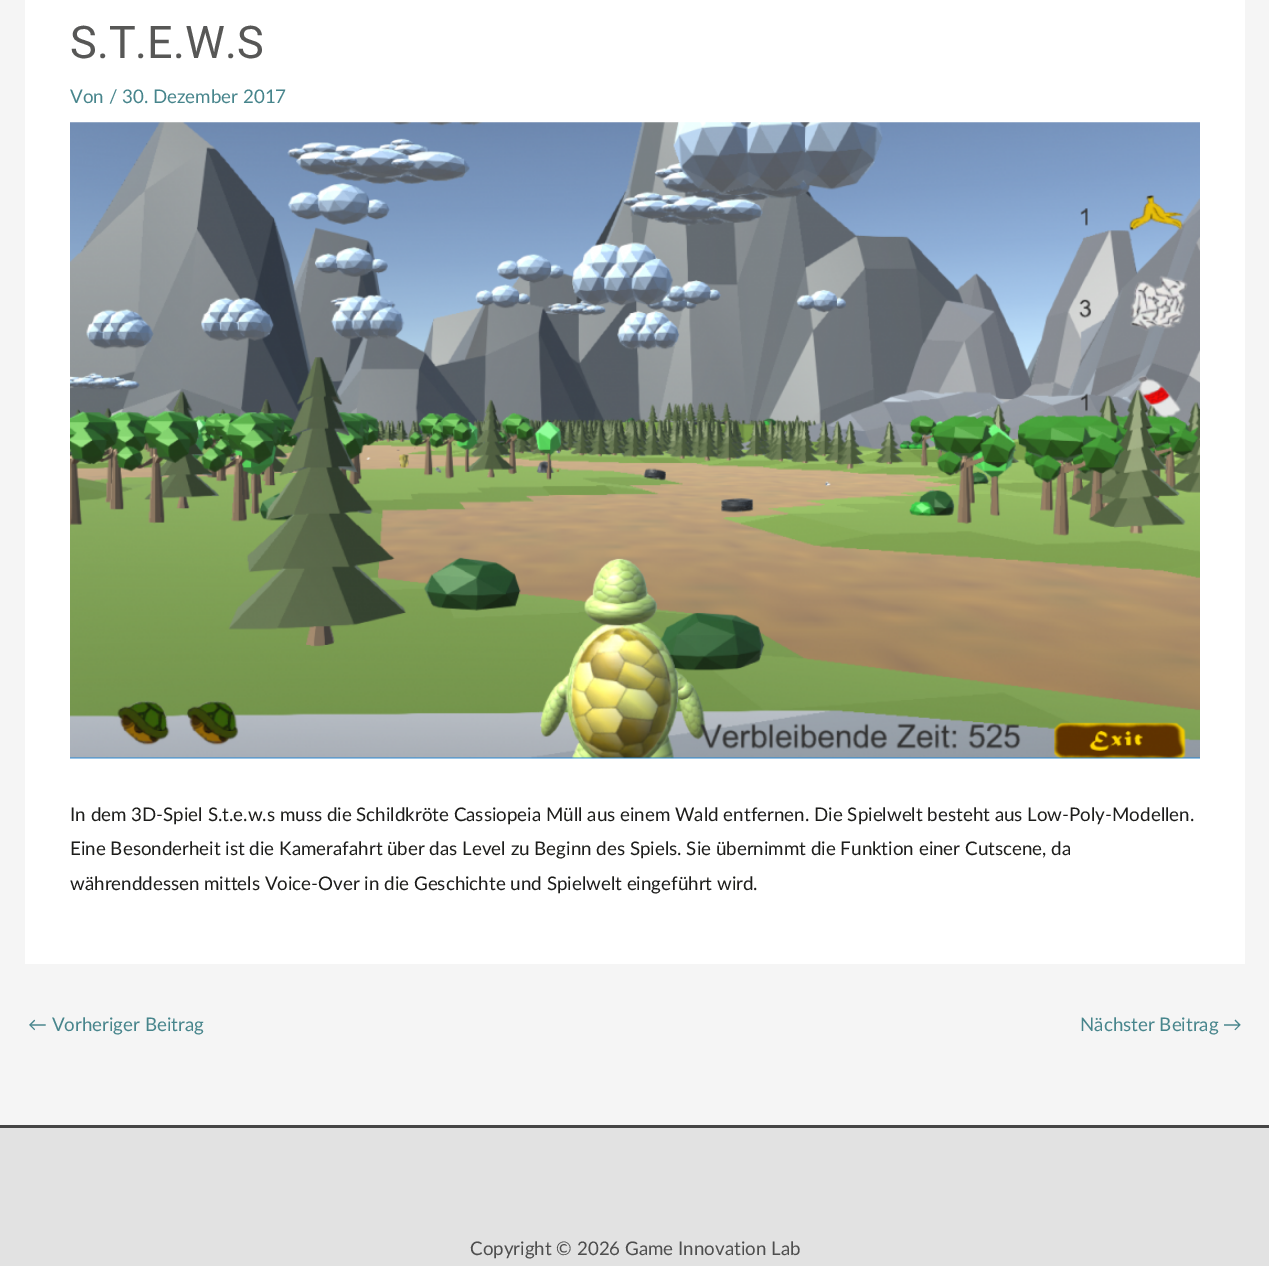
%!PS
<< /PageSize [1269 1266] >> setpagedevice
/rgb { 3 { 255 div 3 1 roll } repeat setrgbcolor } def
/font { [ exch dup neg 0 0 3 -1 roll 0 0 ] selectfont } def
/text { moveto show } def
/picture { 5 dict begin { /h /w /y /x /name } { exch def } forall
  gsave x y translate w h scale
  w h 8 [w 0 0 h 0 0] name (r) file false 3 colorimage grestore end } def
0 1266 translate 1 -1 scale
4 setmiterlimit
245 245 245 rgb
0 0 1269 1266 rectfill
255 255 255 rgb
25 0 1220 964 rectfill
(img_01.rgb) 70 122 1130 637 picture
69 69 69 rgb
0 1125 1269 3 rectfill
226 226 226 rgb
0 1128 1269 138 rectfill
/Roboto-Regular 45 font
87 87 86 rgb
(S.T.E.W.S) 70 58 text
/Lato-Regular 18.75 font
71 133 140 rgb
(Von / 30. Dezember 2017) 70 103 text
29 29 27 rgb
(In dem 3D-Spiel S.t.e.w.s muss die Schildkröte Cassiopeia Müll aus einem Wald entfernen. Die Spielwelt besteht aus Low-Poly-Modellen.) 70 821 text
(Eine Besonderheit ist die Kamerafahrt über das Level zu Beginn des Spiels. Sie übernimmt die Funktion einer Cutscene, da) 70 855 text
(währenddessen mittels Voice-Over in die Geschichte und Spielwelt eingeführt wird.) 70 890 text
71 133 140 rgb
(← Vorheriger Beitrag) 28 1031 text
(Nächster Beitrag →) 1080 1031 text
78 78 78 rgb
(Copyright © 2026 Game Innovation Lab) 470 1255 text
showpage
